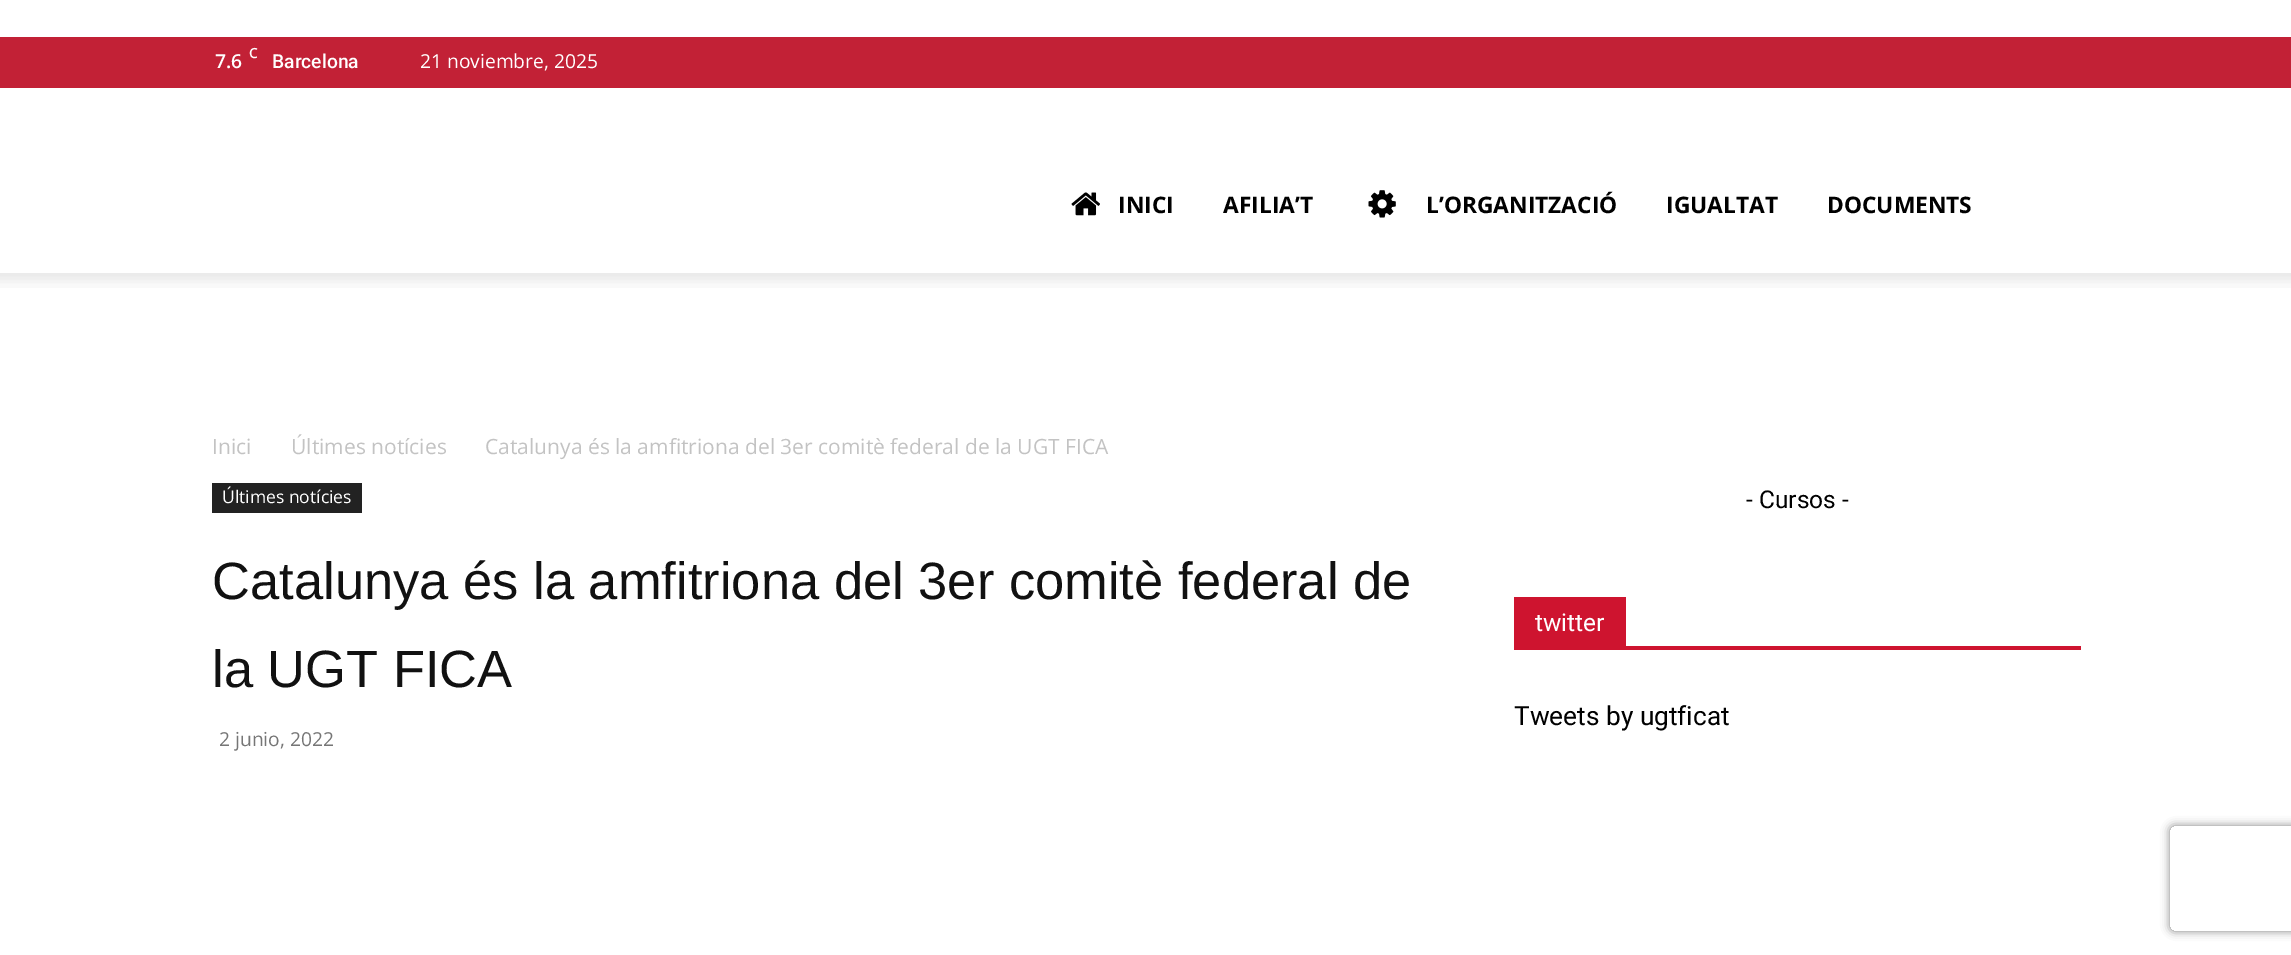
%!PS
<< /PageSize [2291 955] /PageUsesTransparency true >> setpagedevice
/rgb { 3 { 255 div 3 1 roll } repeat setrgbcolor } def
/font { [ exch dup neg 0 0 3 -1 roll 0 0 ] selectfont } def
/text { moveto show } def
/alpha { dup .setfillconstantalpha .setstrokeconstantalpha } def
/roundrect { 5 dict begin { /r /h /w /y /x } { exch def } forall
  x r add y moveto x w add y 2 copy h add r arct x w add y h add x 1 index r arct
  x y h add x y r arct x y 2 copy exch w add exch r arct closepath end } def
/shadow { 12 dict begin { /a /b /q /h /w /y /x } { exch def } forall gsave /was 0 def
  9 -2 -9 { dup b mul 4 div /e exch def 1 sub .425 mul 2.718 exch exp 1 add a .99 .min exch div /now exch def
    1 1 now sub 1 was sub div sub alpha /was now def
    w h .min e 2 mul add 0 gt { x e sub y e sub w e 2 mul add h e 2 mul add
      q e add b .6 mul add w h .min 2 div e add .min 0 .max roundrect fill } if } for grestore end } def
/picture { 5 dict begin { /h /w /y /x /name } { exch def } forall
  gsave x y translate w h scale
  w h 8 [w 0 0 h 0 0] name (r) file false 3 colorimage grestore end } def
0 .pushpdf14devicefilter
0 955 translate 1 -1 scale
4 setmiterlimit
255 255 255 rgb
0 0 2291 955 rectfill
194 33 54 rgb
0 37 2291 51 rectfill
(img_01.rgb) 1071 192 29 24 picture
(img_02.rgb) 1368 190 28 28 picture
(img_03.rgb) 0 273 2291 15 picture
34 34 34 rgb
212 483 150 30 rectfill
206 20 47 rgb
1514 646 567 4 rectfill
1514 597 112 49 rectfill
gsave
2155 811 moveto 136 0 rlineto 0 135 rlineto -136 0 rlineto closepath 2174 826 moveto 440 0 rlineto 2 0 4 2 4 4 rcurveto 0 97 rlineto 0 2 -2 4 -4 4 rcurveto -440 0 rlineto -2 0 -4 -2 -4 -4 rcurveto 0 -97 rlineto 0 -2 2 -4 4 -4 rcurveto closepath eoclip newpath
128 128 128 rgb
2170 826 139 105 4 4.5 1 shadow
grestore
/OpenSans-SemiBold 19.25 font
255 255 255 rgb
(7.6) 215 68 text
/OpenSans-SemiBold 14 font
(C) 249 58 text
/Roboto-Medium 19.25 font
(Barcelona) 272 68 text
/OpenSans-Regular 19.25 font
(21 noviembre, 2025) 420 68 text
/OpenSans-Bold 22.75 font
0 0 0 rgb
(INICI) 1118 213 text
(AFILIA’T) 1223 213 text
(L’ORGANITZACIÓ) 1426 213 text
(IGUALTAT) 1666 213 text
(DOCUMENTS) 1827 213 text
/OpenSans-Regular 21 font
195 195 195 rgb
(Inici) 212 454 text
(Últimes notícies) 291 454 text
(Catalunya és la amfitriona del 3er comitè federal de la UGT FICA) 485 454 text
/OpenSans-Regular 17.5 font
255 255 255 rgb
(Últimes notícies) 222 503 text
/LiberationSans-Regular 52.5 font
17 17 17 rgb
(Catalunya és la amfitriona del 3er comitè federal de) 212 599 text
(la UGT FICA) 212 687 text
/OpenSans-Regular 19.25 font
118 118 118 rgb
(2 junio, 2022) 219 746 text
/Roboto-Regular 24.5 font
0 0 0 rgb
(- Cursos -) 1746 508 text
255 255 255 rgb
(twitter) 1535 631 text
/Roboto-Regular 26.25 font
0 0 0 rgb
(Tweets by ugtficat) 1514 725 text
.poppdf14devicefilter showpage
